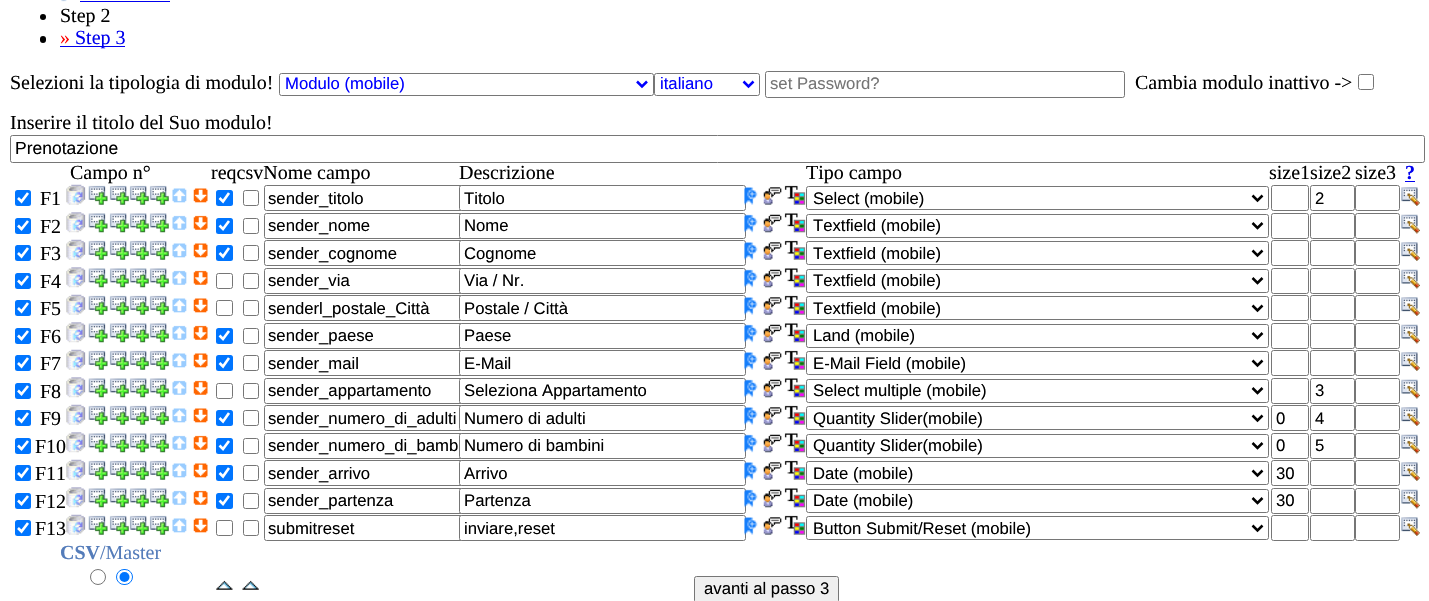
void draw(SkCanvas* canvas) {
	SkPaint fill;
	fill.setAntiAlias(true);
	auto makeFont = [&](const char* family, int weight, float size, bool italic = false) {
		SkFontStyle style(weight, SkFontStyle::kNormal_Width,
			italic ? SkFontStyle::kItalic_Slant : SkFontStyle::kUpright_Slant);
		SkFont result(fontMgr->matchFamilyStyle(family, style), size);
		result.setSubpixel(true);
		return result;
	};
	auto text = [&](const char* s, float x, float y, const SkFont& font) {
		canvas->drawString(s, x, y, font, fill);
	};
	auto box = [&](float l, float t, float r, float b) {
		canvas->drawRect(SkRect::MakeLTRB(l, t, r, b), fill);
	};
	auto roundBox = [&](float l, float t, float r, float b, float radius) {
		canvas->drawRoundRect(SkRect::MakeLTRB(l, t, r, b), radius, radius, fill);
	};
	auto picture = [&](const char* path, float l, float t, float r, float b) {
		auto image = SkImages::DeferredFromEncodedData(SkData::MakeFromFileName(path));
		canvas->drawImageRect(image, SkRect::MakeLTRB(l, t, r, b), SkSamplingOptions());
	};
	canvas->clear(0xFFFFFFFF);
	picture("image0.png", 61, 0, 67, 2);
	fill.setColor(0xFF0000EE);
	box(80, 1, 170, 2);
	fill.setColor(0xFF000000);
	canvas->drawCircle(43, 17, 3, fill);
	roundBox(40, 36, 46, 43, 3);
	fill.setColor(0xFF0000EE);
	box(60, 46, 125, 47);
	fill.setStyle(SkPaint::kStroke_Style);
	fill.setStrokeWidth(1);
	fill.setColor(0xFF767676);
	canvas->drawRoundRect(SkRect::MakeLTRB(279.5f, 73.5f, 653.5f, 95.5f), 2, 2, fill);
	fill.setStrokeWidth(2.5f);
	fill.setColor(0xFF0000FF);
	canvas->drawPath(SkPathBuilder().moveTo(637, 81.5f).lineTo(642, 86.5f).lineTo(647, 81.5f).detach(), fill);
	fill.setStrokeWidth(1);
	fill.setColor(0xFF767676);
	canvas->drawRoundRect(SkRect::MakeLTRB(654.5f, 73.5f, 759.5f, 95.5f), 2, 2, fill);
	fill.setStrokeWidth(2.5f);
	fill.setColor(0xFF0000FF);
	canvas->drawPath(SkPathBuilder().moveTo(743.5f, 81.5f).lineTo(748.5f, 86.5f).lineTo(753.5f, 81.5f).detach(), fill);
	fill.setStrokeWidth(1);
	fill.setColor(0xFF767676);
	canvas->drawRoundRect(SkRect::MakeLTRB(765.5f, 71.5f, 1124.5f, 97.5f), 2, 2, fill);
	canvas->drawRoundRect(SkRect::MakeLTRB(1358.5f, 74.5f, 1373.5f, 89.5f), 2, 2, fill);
	canvas->drawRoundRect(SkRect::MakeLTRB(10.5f, 135.5f, 1424.5f, 162.5f), 2, 2, fill);
	fill.setStyle(SkPaint::kFill_Style);
	fill.setColor(0xFF0000EE);
	box(1405, 181, 1415, 182);
	fill.setColor(0xFF0075FF);
	roundBox(15, 190, 31, 206, 2.5f);
	fill.setStyle(SkPaint::kStroke_Style);
	fill.setStrokeWidth(2.6f);
	fill.setColor(0xFFFFFFFF);
	canvas->drawPath(SkPathBuilder().moveTo(18, 198).lineTo(21.5f, 201.5f).lineTo(28, 193).detach(), fill);
	picture("image1.png", 66, 184, 86, 205);
	picture("image2.png", 88, 185, 108, 205);
	picture("image3.png", 109, 185, 129, 205);
	picture("image3.png", 129, 185, 149, 205);
	picture("image3.png", 149, 185, 169, 205);
	picture("image4.png", 172, 188, 187, 203);
	picture("image5.png", 193, 188, 208, 203);
	fill.setStyle(SkPaint::kFill_Style);
	fill.setColor(0xFF0075FF);
	roundBox(216, 190, 233, 206, 2.5f);
	fill.setStyle(SkPaint::kStroke_Style);
	fill.setColor(0xFFFFFFFF);
	canvas->drawPath(SkPathBuilder().moveTo(219.5f, 198).lineTo(223, 201.5f).lineTo(229, 193).detach(), fill);
	fill.setStrokeWidth(1);
	fill.setColor(0xFF767676);
	canvas->drawRoundRect(SkRect::MakeLTRB(243.5f, 190.5f, 258.5f, 205.5f), 2, 2, fill);
	canvas->drawRoundRect(SkRect::MakeLTRB(264.5f, 185.5f, 467.5f, 210.5f), 2, 2, fill);
	fill.setStyle(SkPaint::kFill_Style);
	fill.setColor(0xFFFFFFFF);
	canvas->drawRoundRect(SkRect::MakeLTRB(459.5f, 185.5f, 745.5f, 210.5f), 2, 2, fill);
	fill.setStyle(SkPaint::kStroke_Style);
	fill.setColor(0xFF767676);
	canvas->drawRoundRect(SkRect::MakeLTRB(459.5f, 185.5f, 745.5f, 210.5f), 2, 2, fill);
	picture("image6.png", 744, 187, 758, 205);
	picture("image7.png", 763, 187, 782, 205);
	picture("image8.png", 784, 185, 806, 205);
	canvas->drawRoundRect(SkRect::MakeLTRB(806.5f, 186.5f, 1268.5f, 209.5f), 2, 2, fill);
	fill.setStrokeWidth(2.5f);
	fill.setColor(0xFF000000);
	canvas->drawPath(SkPathBuilder().moveTo(1252.5f, 195.5f).lineTo(1257.5f, 200.5f).lineTo(1262.5f, 195.5f).detach(), fill);
	fill.setStrokeWidth(1);
	fill.setColor(0xFF767676);
	canvas->drawRoundRect(SkRect::MakeLTRB(1271.5f, 185.5f, 1308.5f, 210.5f), 2, 2, fill);
	canvas->drawRoundRect(SkRect::MakeLTRB(1310.5f, 185.5f, 1354.5f, 210.5f), 2, 2, fill);
	canvas->drawRoundRect(SkRect::MakeLTRB(1355.5f, 185.5f, 1399.5f, 210.5f), 2, 2, fill);
	picture("image9.png", 1401, 187, 1420, 206);
	fill.setStyle(SkPaint::kFill_Style);
	fill.setColor(0xFF0075FF);
	roundBox(15, 218, 31, 234, 2.5f);
	fill.setStyle(SkPaint::kStroke_Style);
	fill.setStrokeWidth(2.6f);
	fill.setColor(0xFFFFFFFF);
	canvas->drawPath(SkPathBuilder().moveTo(18, 225.5f).lineTo(21.5f, 229).lineTo(28, 221).detach(), fill);
	picture("image10.png", 66, 212, 86, 233);
	picture("image11.png", 88, 213, 108, 233);
	picture("image12.png", 109, 213, 129, 233);
	picture("image12.png", 129, 213, 149, 233);
	picture("image12.png", 149, 213, 169, 233);
	picture("image13.png", 172, 215, 187, 230);
	picture("image14.png", 193, 215, 208, 230);
	fill.setStyle(SkPaint::kFill_Style);
	fill.setColor(0xFF0075FF);
	roundBox(216, 218, 233, 234, 2.5f);
	fill.setStyle(SkPaint::kStroke_Style);
	fill.setColor(0xFFFFFFFF);
	canvas->drawPath(SkPathBuilder().moveTo(219.5f, 225.5f).lineTo(223, 229).lineTo(229, 221).detach(), fill);
	fill.setStrokeWidth(1);
	fill.setColor(0xFF767676);
	canvas->drawRoundRect(SkRect::MakeLTRB(243.5f, 218.5f, 258.5f, 233.5f), 2, 2, fill);
	canvas->drawRoundRect(SkRect::MakeLTRB(264.5f, 213.5f, 467.5f, 238.5f), 2, 2, fill);
	fill.setStyle(SkPaint::kFill_Style);
	fill.setColor(0xFFFFFFFF);
	canvas->drawRoundRect(SkRect::MakeLTRB(459.5f, 213.5f, 745.5f, 238.5f), 2, 2, fill);
	fill.setStyle(SkPaint::kStroke_Style);
	fill.setColor(0xFF767676);
	canvas->drawRoundRect(SkRect::MakeLTRB(459.5f, 213.5f, 745.5f, 238.5f), 2, 2, fill);
	picture("image15.png", 744, 214, 758, 233);
	picture("image16.png", 763, 214, 782, 233);
	picture("image17.png", 784, 213, 806, 233);
	canvas->drawRoundRect(SkRect::MakeLTRB(806.5f, 214.5f, 1268.5f, 237.5f), 2, 2, fill);
	fill.setStrokeWidth(2.5f);
	fill.setColor(0xFF000000);
	canvas->drawPath(SkPathBuilder().moveTo(1252.5f, 223).lineTo(1257.5f, 228).lineTo(1262.5f, 223).detach(), fill);
	fill.setStrokeWidth(1);
	fill.setColor(0xFF767676);
	canvas->drawRoundRect(SkRect::MakeLTRB(1271.5f, 213.5f, 1308.5f, 238.5f), 2, 2, fill);
	canvas->drawRoundRect(SkRect::MakeLTRB(1310.5f, 213.5f, 1354.5f, 238.5f), 2, 2, fill);
	canvas->drawRoundRect(SkRect::MakeLTRB(1355.5f, 213.5f, 1399.5f, 238.5f), 2, 2, fill);
	picture("image18.png", 1401, 214, 1420, 234);
	fill.setStyle(SkPaint::kFill_Style);
	fill.setColor(0xFF0075FF);
	roundBox(15, 245, 31, 261, 2.5f);
	fill.setStyle(SkPaint::kStroke_Style);
	fill.setStrokeWidth(2.6f);
	fill.setColor(0xFFFFFFFF);
	canvas->drawPath(SkPathBuilder().moveTo(18, 253).lineTo(21.5f, 256.5f).lineTo(28, 248).detach(), fill);
	picture("image19.png", 66, 239, 86, 260);
	picture("image20.png", 88, 240, 108, 260);
	picture("image21.png", 109, 240, 129, 260);
	picture("image21.png", 129, 240, 149, 260);
	picture("image21.png", 149, 240, 169, 260);
	picture("image22.png", 172, 243, 187, 258);
	picture("image23.png", 193, 243, 208, 258);
	fill.setStyle(SkPaint::kFill_Style);
	fill.setColor(0xFF0075FF);
	roundBox(216, 245, 233, 261, 2.5f);
	fill.setStyle(SkPaint::kStroke_Style);
	fill.setColor(0xFFFFFFFF);
	canvas->drawPath(SkPathBuilder().moveTo(219.5f, 253).lineTo(223, 256.5f).lineTo(229, 248).detach(), fill);
	fill.setStrokeWidth(1);
	fill.setColor(0xFF767676);
	canvas->drawRoundRect(SkRect::MakeLTRB(243.5f, 245.5f, 258.5f, 260.5f), 2, 2, fill);
	canvas->drawRoundRect(SkRect::MakeLTRB(264.5f, 240.5f, 467.5f, 265.5f), 2, 2, fill);
	fill.setStyle(SkPaint::kFill_Style);
	fill.setColor(0xFFFFFFFF);
	canvas->drawRoundRect(SkRect::MakeLTRB(459.5f, 240.5f, 745.5f, 265.5f), 2, 2, fill);
	fill.setStyle(SkPaint::kStroke_Style);
	fill.setColor(0xFF767676);
	canvas->drawRoundRect(SkRect::MakeLTRB(459.5f, 240.5f, 745.5f, 265.5f), 2, 2, fill);
	picture("image6.png", 744, 242, 758, 260);
	picture("image24.png", 763, 242, 782, 260);
	picture("image25.png", 784, 240, 806, 260);
	canvas->drawRoundRect(SkRect::MakeLTRB(806.5f, 241.5f, 1268.5f, 264.5f), 2, 2, fill);
	fill.setStrokeWidth(2.5f);
	fill.setColor(0xFF000000);
	canvas->drawPath(SkPathBuilder().moveTo(1252.5f, 250.5f).lineTo(1257.5f, 255.5f).lineTo(1262.5f, 250.5f).detach(), fill);
	fill.setStrokeWidth(1);
	fill.setColor(0xFF767676);
	canvas->drawRoundRect(SkRect::MakeLTRB(1271.5f, 240.5f, 1308.5f, 265.5f), 2, 2, fill);
	canvas->drawRoundRect(SkRect::MakeLTRB(1310.5f, 240.5f, 1354.5f, 265.5f), 2, 2, fill);
	canvas->drawRoundRect(SkRect::MakeLTRB(1355.5f, 240.5f, 1399.5f, 265.5f), 2, 2, fill);
	picture("image26.png", 1401, 242, 1420, 261);
	fill.setStyle(SkPaint::kFill_Style);
	fill.setColor(0xFF0075FF);
	roundBox(15, 273, 31, 289, 2.5f);
	fill.setStyle(SkPaint::kStroke_Style);
	fill.setStrokeWidth(2.6f);
	fill.setColor(0xFFFFFFFF);
	canvas->drawPath(SkPathBuilder().moveTo(18, 280.5f).lineTo(21.5f, 284).lineTo(28, 276).detach(), fill);
	picture("image10.png", 66, 267, 86, 288);
	picture("image11.png", 88, 268, 108, 288);
	picture("image12.png", 109, 268, 129, 288);
	picture("image12.png", 129, 268, 149, 288);
	picture("image12.png", 149, 268, 169, 288);
	picture("image13.png", 172, 270, 187, 285);
	picture("image14.png", 193, 270, 208, 285);
	fill.setStrokeWidth(1);
	fill.setColor(0xFF767676);
	canvas->drawRoundRect(SkRect::MakeLTRB(216.5f, 273.5f, 232.5f, 288.5f), 2, 2, fill);
	canvas->drawRoundRect(SkRect::MakeLTRB(243.5f, 273.5f, 258.5f, 288.5f), 2, 2, fill);
	canvas->drawRoundRect(SkRect::MakeLTRB(264.5f, 268.5f, 467.5f, 293.5f), 2, 2, fill);
	fill.setStyle(SkPaint::kFill_Style);
	fill.setColor(0xFFFFFFFF);
	canvas->drawRoundRect(SkRect::MakeLTRB(459.5f, 268.5f, 745.5f, 293.5f), 2, 2, fill);
	fill.setStyle(SkPaint::kStroke_Style);
	fill.setColor(0xFF767676);
	canvas->drawRoundRect(SkRect::MakeLTRB(459.5f, 268.5f, 745.5f, 293.5f), 2, 2, fill);
	picture("image15.png", 744, 269, 758, 288);
	picture("image16.png", 763, 269, 782, 288);
	picture("image17.png", 784, 268, 806, 288);
	canvas->drawRoundRect(SkRect::MakeLTRB(806.5f, 269.5f, 1268.5f, 292.5f), 2, 2, fill);
	fill.setStrokeWidth(2.5f);
	fill.setColor(0xFF000000);
	canvas->drawPath(SkPathBuilder().moveTo(1252.5f, 278).lineTo(1257.5f, 283).lineTo(1262.5f, 278).detach(), fill);
	fill.setStrokeWidth(1);
	fill.setColor(0xFF767676);
	canvas->drawRoundRect(SkRect::MakeLTRB(1271.5f, 268.5f, 1308.5f, 293.5f), 2, 2, fill);
	canvas->drawRoundRect(SkRect::MakeLTRB(1310.5f, 268.5f, 1354.5f, 293.5f), 2, 2, fill);
	canvas->drawRoundRect(SkRect::MakeLTRB(1355.5f, 268.5f, 1399.5f, 293.5f), 2, 2, fill);
	picture("image18.png", 1401, 269, 1420, 289);
	fill.setStyle(SkPaint::kFill_Style);
	fill.setColor(0xFF0075FF);
	roundBox(15, 300, 31, 316, 2.5f);
	fill.setStyle(SkPaint::kStroke_Style);
	fill.setStrokeWidth(2.6f);
	fill.setColor(0xFFFFFFFF);
	canvas->drawPath(SkPathBuilder().moveTo(18, 308).lineTo(21.5f, 311.5f).lineTo(28, 303).detach(), fill);
	picture("image1.png", 66, 294, 86, 315);
	picture("image2.png", 88, 295, 108, 315);
	picture("image3.png", 109, 295, 129, 315);
	picture("image3.png", 129, 295, 149, 315);
	picture("image3.png", 149, 295, 169, 315);
	picture("image4.png", 172, 298, 187, 313);
	picture("image5.png", 193, 298, 208, 313);
	fill.setStrokeWidth(1);
	fill.setColor(0xFF767676);
	canvas->drawRoundRect(SkRect::MakeLTRB(216.5f, 300.5f, 232.5f, 315.5f), 2, 2, fill);
	canvas->drawRoundRect(SkRect::MakeLTRB(243.5f, 300.5f, 258.5f, 315.5f), 2, 2, fill);
	canvas->drawRoundRect(SkRect::MakeLTRB(264.5f, 295.5f, 467.5f, 320.5f), 2, 2, fill);
	fill.setStyle(SkPaint::kFill_Style);
	fill.setColor(0xFFFFFFFF);
	canvas->drawRoundRect(SkRect::MakeLTRB(459.5f, 295.5f, 745.5f, 320.5f), 2, 2, fill);
	fill.setStyle(SkPaint::kStroke_Style);
	fill.setColor(0xFF767676);
	canvas->drawRoundRect(SkRect::MakeLTRB(459.5f, 295.5f, 745.5f, 320.5f), 2, 2, fill);
	picture("image6.png", 744, 297, 758, 315);
	picture("image7.png", 763, 297, 782, 315);
	picture("image8.png", 784, 295, 806, 315);
	canvas->drawRoundRect(SkRect::MakeLTRB(806.5f, 296.5f, 1268.5f, 319.5f), 2, 2, fill);
	fill.setStrokeWidth(2.5f);
	fill.setColor(0xFF000000);
	canvas->drawPath(SkPathBuilder().moveTo(1252.5f, 305.5f).lineTo(1257.5f, 310.5f).lineTo(1262.5f, 305.5f).detach(), fill);
	fill.setStrokeWidth(1);
	fill.setColor(0xFF767676);
	canvas->drawRoundRect(SkRect::MakeLTRB(1271.5f, 295.5f, 1308.5f, 320.5f), 2, 2, fill);
	canvas->drawRoundRect(SkRect::MakeLTRB(1310.5f, 295.5f, 1354.5f, 320.5f), 2, 2, fill);
	canvas->drawRoundRect(SkRect::MakeLTRB(1355.5f, 295.5f, 1399.5f, 320.5f), 2, 2, fill);
	picture("image9.png", 1401, 297, 1420, 316);
	fill.setStyle(SkPaint::kFill_Style);
	fill.setColor(0xFF0075FF);
	roundBox(15, 328, 31, 344, 2.5f);
	fill.setStyle(SkPaint::kStroke_Style);
	fill.setStrokeWidth(2.6f);
	fill.setColor(0xFFFFFFFF);
	canvas->drawPath(SkPathBuilder().moveTo(18, 335.5f).lineTo(21.5f, 339).lineTo(28, 331).detach(), fill);
	picture("image10.png", 66, 322, 86, 343);
	picture("image11.png", 88, 323, 108, 343);
	picture("image12.png", 109, 323, 129, 343);
	picture("image12.png", 129, 323, 149, 343);
	picture("image12.png", 149, 323, 169, 343);
	picture("image13.png", 172, 325, 187, 340);
	picture("image14.png", 193, 325, 208, 340);
	fill.setStyle(SkPaint::kFill_Style);
	fill.setColor(0xFF0075FF);
	roundBox(216, 328, 233, 344, 2.5f);
	fill.setStyle(SkPaint::kStroke_Style);
	fill.setColor(0xFFFFFFFF);
	canvas->drawPath(SkPathBuilder().moveTo(219.5f, 335.5f).lineTo(223, 339).lineTo(229, 331).detach(), fill);
	fill.setStrokeWidth(1);
	fill.setColor(0xFF767676);
	canvas->drawRoundRect(SkRect::MakeLTRB(243.5f, 328.5f, 258.5f, 343.5f), 2, 2, fill);
	canvas->drawRoundRect(SkRect::MakeLTRB(264.5f, 323.5f, 467.5f, 348.5f), 2, 2, fill);
	fill.setStyle(SkPaint::kFill_Style);
	fill.setColor(0xFFFFFFFF);
	canvas->drawRoundRect(SkRect::MakeLTRB(459.5f, 323.5f, 745.5f, 348.5f), 2, 2, fill);
	fill.setStyle(SkPaint::kStroke_Style);
	fill.setColor(0xFF767676);
	canvas->drawRoundRect(SkRect::MakeLTRB(459.5f, 323.5f, 745.5f, 348.5f), 2, 2, fill);
	picture("image15.png", 744, 324, 758, 343);
	picture("image16.png", 763, 324, 782, 343);
	picture("image17.png", 784, 323, 806, 343);
	canvas->drawRoundRect(SkRect::MakeLTRB(806.5f, 324.5f, 1268.5f, 347.5f), 2, 2, fill);
	fill.setStrokeWidth(2.5f);
	fill.setColor(0xFF000000);
	canvas->drawPath(SkPathBuilder().moveTo(1252.5f, 333).lineTo(1257.5f, 338).lineTo(1262.5f, 333).detach(), fill);
	fill.setStrokeWidth(1);
	fill.setColor(0xFF767676);
	canvas->drawRoundRect(SkRect::MakeLTRB(1271.5f, 323.5f, 1308.5f, 348.5f), 2, 2, fill);
	canvas->drawRoundRect(SkRect::MakeLTRB(1310.5f, 323.5f, 1354.5f, 348.5f), 2, 2, fill);
	canvas->drawRoundRect(SkRect::MakeLTRB(1355.5f, 323.5f, 1399.5f, 348.5f), 2, 2, fill);
	picture("image18.png", 1401, 324, 1420, 344);
	fill.setStyle(SkPaint::kFill_Style);
	fill.setColor(0xFF0075FF);
	roundBox(15, 355, 31, 371, 2.5f);
	fill.setStyle(SkPaint::kStroke_Style);
	fill.setStrokeWidth(2.6f);
	fill.setColor(0xFFFFFFFF);
	canvas->drawPath(SkPathBuilder().moveTo(18, 363).lineTo(21.5f, 366.5f).lineTo(28, 358).detach(), fill);
	picture("image1.png", 66, 349, 86, 370);
	picture("image2.png", 88, 350, 108, 370);
	picture("image3.png", 109, 350, 129, 370);
	picture("image3.png", 129, 350, 149, 370);
	picture("image3.png", 149, 350, 169, 370);
	picture("image4.png", 172, 353, 187, 368);
	picture("image5.png", 193, 353, 208, 368);
	fill.setStyle(SkPaint::kFill_Style);
	fill.setColor(0xFF0075FF);
	roundBox(216, 355, 233, 371, 2.5f);
	fill.setStyle(SkPaint::kStroke_Style);
	fill.setColor(0xFFFFFFFF);
	canvas->drawPath(SkPathBuilder().moveTo(219.5f, 363).lineTo(223, 366.5f).lineTo(229, 358).detach(), fill);
	fill.setStrokeWidth(1);
	fill.setColor(0xFF767676);
	canvas->drawRoundRect(SkRect::MakeLTRB(243.5f, 355.5f, 258.5f, 370.5f), 2, 2, fill);
	canvas->drawRoundRect(SkRect::MakeLTRB(264.5f, 350.5f, 467.5f, 375.5f), 2, 2, fill);
	fill.setStyle(SkPaint::kFill_Style);
	fill.setColor(0xFFFFFFFF);
	canvas->drawRoundRect(SkRect::MakeLTRB(459.5f, 350.5f, 745.5f, 375.5f), 2, 2, fill);
	fill.setStyle(SkPaint::kStroke_Style);
	fill.setColor(0xFF767676);
	canvas->drawRoundRect(SkRect::MakeLTRB(459.5f, 350.5f, 745.5f, 375.5f), 2, 2, fill);
	picture("image6.png", 744, 352, 758, 370);
	picture("image7.png", 763, 352, 782, 370);
	picture("image8.png", 784, 350, 806, 370);
	canvas->drawRoundRect(SkRect::MakeLTRB(806.5f, 351.5f, 1268.5f, 374.5f), 2, 2, fill);
	fill.setStrokeWidth(2.5f);
	fill.setColor(0xFF000000);
	canvas->drawPath(SkPathBuilder().moveTo(1252.5f, 360.5f).lineTo(1257.5f, 365.5f).lineTo(1262.5f, 360.5f).detach(), fill);
	fill.setStrokeWidth(1);
	fill.setColor(0xFF767676);
	canvas->drawRoundRect(SkRect::MakeLTRB(1271.5f, 350.5f, 1308.5f, 375.5f), 2, 2, fill);
	canvas->drawRoundRect(SkRect::MakeLTRB(1310.5f, 350.5f, 1354.5f, 375.5f), 2, 2, fill);
	canvas->drawRoundRect(SkRect::MakeLTRB(1355.5f, 350.5f, 1399.5f, 375.5f), 2, 2, fill);
	picture("image9.png", 1401, 352, 1420, 371);
	fill.setStyle(SkPaint::kFill_Style);
	fill.setColor(0xFF0075FF);
	roundBox(15, 383, 31, 399, 2.5f);
	fill.setStyle(SkPaint::kStroke_Style);
	fill.setStrokeWidth(2.6f);
	fill.setColor(0xFFFFFFFF);
	canvas->drawPath(SkPathBuilder().moveTo(18, 390.5f).lineTo(21.5f, 394).lineTo(28, 386).detach(), fill);
	picture("image10.png", 66, 377, 86, 398);
	picture("image11.png", 88, 378, 108, 398);
	picture("image12.png", 109, 378, 129, 398);
	picture("image12.png", 129, 378, 149, 398);
	picture("image12.png", 149, 378, 169, 398);
	picture("image13.png", 172, 380, 187, 395);
	picture("image14.png", 193, 380, 208, 395);
	fill.setStrokeWidth(1);
	fill.setColor(0xFF767676);
	canvas->drawRoundRect(SkRect::MakeLTRB(216.5f, 383.5f, 232.5f, 398.5f), 2, 2, fill);
	canvas->drawRoundRect(SkRect::MakeLTRB(243.5f, 383.5f, 258.5f, 398.5f), 2, 2, fill);
	canvas->drawRoundRect(SkRect::MakeLTRB(264.5f, 378.5f, 467.5f, 403.5f), 2, 2, fill);
	fill.setStyle(SkPaint::kFill_Style);
	fill.setColor(0xFFFFFFFF);
	canvas->drawRoundRect(SkRect::MakeLTRB(459.5f, 378.5f, 745.5f, 403.5f), 2, 2, fill);
	fill.setStyle(SkPaint::kStroke_Style);
	fill.setColor(0xFF767676);
	canvas->drawRoundRect(SkRect::MakeLTRB(459.5f, 378.5f, 745.5f, 403.5f), 2, 2, fill);
	picture("image15.png", 744, 379, 758, 398);
	picture("image16.png", 763, 379, 782, 398);
	picture("image17.png", 784, 378, 806, 398);
	canvas->drawRoundRect(SkRect::MakeLTRB(806.5f, 379.5f, 1268.5f, 402.5f), 2, 2, fill);
	fill.setStrokeWidth(2.5f);
	fill.setColor(0xFF000000);
	canvas->drawPath(SkPathBuilder().moveTo(1252.5f, 388).lineTo(1257.5f, 393).lineTo(1262.5f, 388).detach(), fill);
	fill.setStrokeWidth(1);
	fill.setColor(0xFF767676);
	canvas->drawRoundRect(SkRect::MakeLTRB(1271.5f, 378.5f, 1308.5f, 403.5f), 2, 2, fill);
	canvas->drawRoundRect(SkRect::MakeLTRB(1310.5f, 378.5f, 1354.5f, 403.5f), 2, 2, fill);
	canvas->drawRoundRect(SkRect::MakeLTRB(1355.5f, 378.5f, 1399.5f, 403.5f), 2, 2, fill);
	picture("image18.png", 1401, 379, 1420, 399);
	fill.setStyle(SkPaint::kFill_Style);
	fill.setColor(0xFF0075FF);
	roundBox(15, 410, 31, 426, 2.5f);
	fill.setStyle(SkPaint::kStroke_Style);
	fill.setStrokeWidth(2.6f);
	fill.setColor(0xFFFFFFFF);
	canvas->drawPath(SkPathBuilder().moveTo(18, 418).lineTo(21.5f, 421.5f).lineTo(28, 413).detach(), fill);
	picture("image1.png", 66, 404, 86, 425);
	picture("image2.png", 88, 405, 108, 425);
	picture("image3.png", 109, 405, 129, 425);
	picture("image3.png", 129, 405, 149, 425);
	picture("image3.png", 149, 405, 169, 425);
	picture("image4.png", 172, 408, 187, 423);
	picture("image5.png", 193, 408, 208, 423);
	fill.setStyle(SkPaint::kFill_Style);
	fill.setColor(0xFF0075FF);
	roundBox(216, 410, 233, 426, 2.5f);
	fill.setStyle(SkPaint::kStroke_Style);
	fill.setColor(0xFFFFFFFF);
	canvas->drawPath(SkPathBuilder().moveTo(219.5f, 418).lineTo(223, 421.5f).lineTo(229, 413).detach(), fill);
	fill.setStrokeWidth(1);
	fill.setColor(0xFF767676);
	canvas->drawRoundRect(SkRect::MakeLTRB(243.5f, 410.5f, 258.5f, 425.5f), 2, 2, fill);
	canvas->drawRoundRect(SkRect::MakeLTRB(264.5f, 405.5f, 467.5f, 430.5f), 2, 2, fill);
	fill.setStyle(SkPaint::kFill_Style);
	fill.setColor(0xFFFFFFFF);
	canvas->drawRoundRect(SkRect::MakeLTRB(459.5f, 405.5f, 745.5f, 430.5f), 2, 2, fill);
	fill.setStyle(SkPaint::kStroke_Style);
	fill.setColor(0xFF767676);
	canvas->drawRoundRect(SkRect::MakeLTRB(459.5f, 405.5f, 745.5f, 430.5f), 2, 2, fill);
	picture("image6.png", 744, 407, 758, 425);
	picture("image7.png", 763, 407, 782, 425);
	picture("image8.png", 784, 405, 806, 425);
	canvas->drawRoundRect(SkRect::MakeLTRB(806.5f, 406.5f, 1268.5f, 429.5f), 2, 2, fill);
	fill.setStrokeWidth(2.5f);
	fill.setColor(0xFF000000);
	canvas->drawPath(SkPathBuilder().moveTo(1252.5f, 415.5f).lineTo(1257.5f, 420.5f).lineTo(1262.5f, 415.5f).detach(), fill);
	fill.setStrokeWidth(1);
	fill.setColor(0xFF767676);
	canvas->drawRoundRect(SkRect::MakeLTRB(1271.5f, 405.5f, 1308.5f, 430.5f), 2, 2, fill);
	canvas->drawRoundRect(SkRect::MakeLTRB(1310.5f, 405.5f, 1354.5f, 430.5f), 2, 2, fill);
	canvas->drawRoundRect(SkRect::MakeLTRB(1355.5f, 405.5f, 1399.5f, 430.5f), 2, 2, fill);
	picture("image9.png", 1401, 407, 1420, 426);
	fill.setStyle(SkPaint::kFill_Style);
	fill.setColor(0xFF0075FF);
	roundBox(15, 438, 31, 454, 2.5f);
	fill.setStyle(SkPaint::kStroke_Style);
	fill.setStrokeWidth(2.6f);
	fill.setColor(0xFFFFFFFF);
	canvas->drawPath(SkPathBuilder().moveTo(18, 445.5f).lineTo(21.5f, 449).lineTo(28, 441).detach(), fill);
	picture("image27.png", 66, 432, 86, 453);
	picture("image28.png", 88, 433, 108, 453);
	picture("image29.png", 109, 433, 129, 453);
	picture("image29.png", 129, 433, 149, 453);
	picture("image29.png", 149, 433, 169, 453);
	picture("image30.png", 172, 435, 187, 450);
	picture("image31.png", 193, 435, 208, 450);
	fill.setStyle(SkPaint::kFill_Style);
	fill.setColor(0xFF0075FF);
	roundBox(216, 438, 233, 454, 2.5f);
	fill.setStyle(SkPaint::kStroke_Style);
	fill.setColor(0xFFFFFFFF);
	canvas->drawPath(SkPathBuilder().moveTo(219.5f, 445.5f).lineTo(223, 449).lineTo(229, 441).detach(), fill);
	fill.setStrokeWidth(1);
	fill.setColor(0xFF767676);
	canvas->drawRoundRect(SkRect::MakeLTRB(243.5f, 438.5f, 258.5f, 453.5f), 2, 2, fill);
	canvas->drawRoundRect(SkRect::MakeLTRB(264.5f, 433.5f, 467.5f, 458.5f), 2, 2, fill);
	fill.setStyle(SkPaint::kFill_Style);
	fill.setColor(0xFFFFFFFF);
	canvas->drawRoundRect(SkRect::MakeLTRB(459.5f, 433.5f, 745.5f, 458.5f), 2, 2, fill);
	fill.setStyle(SkPaint::kStroke_Style);
	fill.setColor(0xFF767676);
	canvas->drawRoundRect(SkRect::MakeLTRB(459.5f, 433.5f, 745.5f, 458.5f), 2, 2, fill);
	picture("image15.png", 744, 434, 758, 453);
	picture("image32.png", 763, 434, 782, 453);
	picture("image33.png", 784, 433, 806, 453);
	canvas->drawRoundRect(SkRect::MakeLTRB(806.5f, 434.5f, 1268.5f, 457.5f), 2, 2, fill);
	fill.setStrokeWidth(2.5f);
	fill.setColor(0xFF000000);
	canvas->drawPath(SkPathBuilder().moveTo(1252.5f, 443).lineTo(1257.5f, 448).lineTo(1262.5f, 443).detach(), fill);
	fill.setStrokeWidth(1);
	fill.setColor(0xFF767676);
	canvas->drawRoundRect(SkRect::MakeLTRB(1271.5f, 433.5f, 1308.5f, 458.5f), 2, 2, fill);
	canvas->drawRoundRect(SkRect::MakeLTRB(1310.5f, 433.5f, 1354.5f, 458.5f), 2, 2, fill);
	canvas->drawRoundRect(SkRect::MakeLTRB(1355.5f, 433.5f, 1399.5f, 458.5f), 2, 2, fill);
	picture("image34.png", 1401, 434, 1420, 454);
	fill.setStyle(SkPaint::kFill_Style);
	fill.setColor(0xFF0075FF);
	roundBox(15, 465, 31, 481, 2.5f);
	fill.setStyle(SkPaint::kStroke_Style);
	fill.setStrokeWidth(2.6f);
	fill.setColor(0xFFFFFFFF);
	canvas->drawPath(SkPathBuilder().moveTo(18, 473).lineTo(21.5f, 476.5f).lineTo(28, 468).detach(), fill);
	picture("image1.png", 66, 459, 86, 480);
	picture("image2.png", 88, 460, 108, 480);
	picture("image3.png", 109, 460, 129, 480);
	picture("image3.png", 129, 460, 149, 480);
	picture("image3.png", 149, 460, 169, 480);
	picture("image4.png", 172, 463, 187, 478);
	picture("image5.png", 193, 463, 208, 478);
	fill.setStyle(SkPaint::kFill_Style);
	fill.setColor(0xFF0075FF);
	roundBox(216, 465, 233, 481, 2.5f);
	fill.setStyle(SkPaint::kStroke_Style);
	fill.setColor(0xFFFFFFFF);
	canvas->drawPath(SkPathBuilder().moveTo(219.5f, 473).lineTo(223, 476.5f).lineTo(229, 468).detach(), fill);
	fill.setStrokeWidth(1);
	fill.setColor(0xFF767676);
	canvas->drawRoundRect(SkRect::MakeLTRB(243.5f, 465.5f, 258.5f, 480.5f), 2, 2, fill);
	canvas->drawRoundRect(SkRect::MakeLTRB(264.5f, 460.5f, 467.5f, 485.5f), 2, 2, fill);
	fill.setStyle(SkPaint::kFill_Style);
	fill.setColor(0xFFFFFFFF);
	canvas->drawRoundRect(SkRect::MakeLTRB(459.5f, 460.5f, 745.5f, 485.5f), 2, 2, fill);
	fill.setStyle(SkPaint::kStroke_Style);
	fill.setColor(0xFF767676);
	canvas->drawRoundRect(SkRect::MakeLTRB(459.5f, 460.5f, 745.5f, 485.5f), 2, 2, fill);
	picture("image6.png", 744, 462, 758, 480);
	picture("image7.png", 763, 462, 782, 480);
	picture("image8.png", 784, 460, 806, 480);
	canvas->drawRoundRect(SkRect::MakeLTRB(806.5f, 461.5f, 1268.5f, 484.5f), 2, 2, fill);
	fill.setStrokeWidth(2.5f);
	fill.setColor(0xFF000000);
	canvas->drawPath(SkPathBuilder().moveTo(1252.5f, 470.5f).lineTo(1257.5f, 475.5f).lineTo(1262.5f, 470.5f).detach(), fill);
	fill.setStrokeWidth(1);
	fill.setColor(0xFF767676);
	canvas->drawRoundRect(SkRect::MakeLTRB(1271.5f, 460.5f, 1308.5f, 485.5f), 2, 2, fill);
	canvas->drawRoundRect(SkRect::MakeLTRB(1310.5f, 460.5f, 1354.5f, 485.5f), 2, 2, fill);
	canvas->drawRoundRect(SkRect::MakeLTRB(1355.5f, 460.5f, 1399.5f, 485.5f), 2, 2, fill);
	picture("image9.png", 1401, 462, 1420, 481);
	fill.setStyle(SkPaint::kFill_Style);
	fill.setColor(0xFF0075FF);
	roundBox(15, 493, 31, 509, 2.5f);
	fill.setStyle(SkPaint::kStroke_Style);
	fill.setStrokeWidth(2.6f);
	fill.setColor(0xFFFFFFFF);
	canvas->drawPath(SkPathBuilder().moveTo(18, 500.5f).lineTo(21.5f, 504).lineTo(28, 496).detach(), fill);
	picture("image10.png", 66, 487, 86, 508);
	picture("image11.png", 88, 488, 108, 508);
	picture("image12.png", 109, 488, 129, 508);
	picture("image12.png", 129, 488, 149, 508);
	picture("image12.png", 149, 488, 169, 508);
	picture("image13.png", 172, 490, 187, 505);
	picture("image14.png", 193, 490, 208, 505);
	fill.setStyle(SkPaint::kFill_Style);
	fill.setColor(0xFF0075FF);
	roundBox(216, 493, 233, 509, 2.5f);
	fill.setStyle(SkPaint::kStroke_Style);
	fill.setColor(0xFFFFFFFF);
	canvas->drawPath(SkPathBuilder().moveTo(219.5f, 500.5f).lineTo(223, 504).lineTo(229, 496).detach(), fill);
	fill.setStrokeWidth(1);
	fill.setColor(0xFF767676);
	canvas->drawRoundRect(SkRect::MakeLTRB(243.5f, 493.5f, 258.5f, 508.5f), 2, 2, fill);
	canvas->drawRoundRect(SkRect::MakeLTRB(264.5f, 488.5f, 467.5f, 513.5f), 2, 2, fill);
	fill.setStyle(SkPaint::kFill_Style);
	fill.setColor(0xFFFFFFFF);
	canvas->drawRoundRect(SkRect::MakeLTRB(459.5f, 488.5f, 745.5f, 513.5f), 2, 2, fill);
	fill.setStyle(SkPaint::kStroke_Style);
	fill.setColor(0xFF767676);
	canvas->drawRoundRect(SkRect::MakeLTRB(459.5f, 488.5f, 745.5f, 513.5f), 2, 2, fill);
	picture("image15.png", 744, 489, 758, 508);
	picture("image16.png", 763, 489, 782, 508);
	picture("image17.png", 784, 488, 806, 508);
	canvas->drawRoundRect(SkRect::MakeLTRB(806.5f, 489.5f, 1268.5f, 512.5f), 2, 2, fill);
	fill.setStrokeWidth(2.5f);
	fill.setColor(0xFF000000);
	canvas->drawPath(SkPathBuilder().moveTo(1252.5f, 498).lineTo(1257.5f, 503).lineTo(1262.5f, 498).detach(), fill);
	fill.setStrokeWidth(1);
	fill.setColor(0xFF767676);
	canvas->drawRoundRect(SkRect::MakeLTRB(1271.5f, 488.5f, 1308.5f, 513.5f), 2, 2, fill);
	canvas->drawRoundRect(SkRect::MakeLTRB(1310.5f, 488.5f, 1354.5f, 513.5f), 2, 2, fill);
	canvas->drawRoundRect(SkRect::MakeLTRB(1355.5f, 488.5f, 1399.5f, 513.5f), 2, 2, fill);
	picture("image18.png", 1401, 489, 1420, 509);
	fill.setStyle(SkPaint::kFill_Style);
	fill.setColor(0xFF0075FF);
	roundBox(15, 520, 31, 536, 2.5f);
	fill.setStyle(SkPaint::kStroke_Style);
	fill.setStrokeWidth(2.6f);
	fill.setColor(0xFFFFFFFF);
	canvas->drawPath(SkPathBuilder().moveTo(18, 528).lineTo(21.5f, 531.5f).lineTo(28, 523).detach(), fill);
	picture("image1.png", 66, 514, 86, 535);
	picture("image2.png", 88, 515, 108, 535);
	picture("image3.png", 109, 515, 129, 535);
	picture("image3.png", 129, 515, 149, 535);
	picture("image3.png", 149, 515, 169, 535);
	picture("image4.png", 172, 518, 187, 533);
	picture("image5.png", 193, 518, 208, 533);
	fill.setStrokeWidth(1);
	fill.setColor(0xFF767676);
	canvas->drawRoundRect(SkRect::MakeLTRB(216.5f, 520.5f, 232.5f, 535.5f), 2, 2, fill);
	canvas->drawRoundRect(SkRect::MakeLTRB(243.5f, 520.5f, 258.5f, 535.5f), 2, 2, fill);
	canvas->drawRoundRect(SkRect::MakeLTRB(264.5f, 515.5f, 467.5f, 540.5f), 2, 2, fill);
	fill.setStyle(SkPaint::kFill_Style);
	fill.setColor(0xFFFFFFFF);
	canvas->drawRoundRect(SkRect::MakeLTRB(459.5f, 515.5f, 745.5f, 540.5f), 2, 2, fill);
	fill.setStyle(SkPaint::kStroke_Style);
	fill.setColor(0xFF767676);
	canvas->drawRoundRect(SkRect::MakeLTRB(459.5f, 515.5f, 745.5f, 540.5f), 2, 2, fill);
	picture("image6.png", 744, 517, 758, 535);
	picture("image7.png", 763, 517, 782, 535);
	picture("image8.png", 784, 515, 806, 535);
	canvas->drawRoundRect(SkRect::MakeLTRB(806.5f, 516.5f, 1268.5f, 539.5f), 2, 2, fill);
	fill.setStrokeWidth(2.5f);
	fill.setColor(0xFF000000);
	canvas->drawPath(SkPathBuilder().moveTo(1252.5f, 525.5f).lineTo(1257.5f, 530.5f).lineTo(1262.5f, 525.5f).detach(), fill);
	fill.setStrokeWidth(1);
	fill.setColor(0xFF767676);
	canvas->drawRoundRect(SkRect::MakeLTRB(1271.5f, 515.5f, 1308.5f, 540.5f), 2, 2, fill);
	canvas->drawRoundRect(SkRect::MakeLTRB(1310.5f, 515.5f, 1354.5f, 540.5f), 2, 2, fill);
	canvas->drawRoundRect(SkRect::MakeLTRB(1355.5f, 515.5f, 1399.5f, 540.5f), 2, 2, fill);
	picture("image9.png", 1401, 517, 1420, 536);
	canvas->drawCircle(98, 577, 7.5f, fill);
	fill.setColor(0xFF0075FF);
	canvas->drawRoundRect(SkRect::MakeLTRB(116.5f, 569.5f, 132.5f, 584.5f), 7.5f, 7.5f, fill);
	fill.setStyle(SkPaint::kFill_Style);
	canvas->drawCircle(124.5f, 577, 5, fill);
	picture("image35.png", 216, 580, 233, 590);
	picture("image36.png", 242, 580, 259, 590);
	fill.setColor(0xFFEFEFEF);
	canvas->drawRoundRect(SkRect::MakeLTRB(694.5f, 576.5f, 838.5f, 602.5f), 2, 2, fill);
	fill.setStyle(SkPaint::kStroke_Style);
	fill.setColor(0xFF767676);
	canvas->drawRoundRect(SkRect::MakeLTRB(694.5f, 576.5f, 838.5f, 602.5f), 2, 2, fill);
	auto font1 = makeFont("Liberation Serif", 400, 20);
	fill.setStyle(SkPaint::kFill_Style);
	fill.setColor(0xFF000000);
	text("Step 2", 60, 22, font1);
	fill.setColor(0xFFFF0000);
	text("»", 60, 44, font1);
	fill.setColor(0xFF0000EE);
	text("Step 3", 75, 44, font1);
	fill.setColor(0xFF000000);
	text("Selezioni la tipologia di modulo!", 10, 89, font1);
	auto font2 = makeFont("Liberation Sans", 400, 16.7f);
	fill.setColor(0xFF0000FF);
	text("Modulo (mobile)", 285, 89, font2);
	text("italiano", 660, 89, font2);
	fill.setColor(0xFF757575);
	text("set Password?", 770, 89, font2);
	fill.setColor(0xFF000000);
	text("Cambia modulo inattivo ->", 1135, 89, font1);
	text("Inserire il titolo del Suo modulo!", 10, 129, font1);
	auto font3 = makeFont("Liberation Sans", 400, 17.5f);
	text("Prenotazione", 15, 154, font3);
	text("Campo n°", 70, 179, font1);
	text("reqcsvNome campo", 211, 179, font1);
	text("Descrizione", 459, 179, font1);
	text("Tipo campo", 806, 179, font1);
	text("size1size2", 1269, 179, font1);
	text("size3", 1355, 179, font1);
	auto font4 = makeFont("Liberation Serif", 700, 20);
	fill.setColor(0xFF0000EE);
	text("?", 1405, 179, font4);
	fill.setColor(0xFF000000);
	text("F1", 40, 205, font1);
	text("sender_titolo", 268, 204, font2);
	text("Titolo", 464, 204, font2);
	text("Select (mobile)", 813, 204, font2);
	text("2", 1315, 204, font2);
	text("F2", 40, 233, font1);
	text("sender_nome", 268, 231, font2);
	text("Nome", 464, 231, font2);
	text("Textfield (mobile)", 813, 231, font2);
	text("F3", 40, 260, font1);
	text("sender_cognome", 268, 259, font2);
	text("Cognome", 464, 259, font2);
	text("Textfield (mobile)", 813, 259, font2);
	text("F4", 40, 288, font1);
	text("sender_via", 268, 286, font2);
	text("Via / Nr.", 464, 286, font2);
	text("Textfield (mobile)", 813, 286, font2);
	text("F5", 40, 315, font1);
	text("senderl_postale_Città", 268, 314, font2);
	text("Postale / Città", 464, 314, font2);
	text("Textfield (mobile)", 813, 314, font2);
	text("F6", 40, 343, font1);
	text("sender_paese", 268, 341, font2);
	text("Paese", 464, 341, font2);
	text("Land (mobile)", 813, 341, font2);
	text("F7", 40, 370, font1);
	text("sender_mail", 268, 369, font2);
	text("E-Mail", 464, 369, font2);
	text("E-Mail Field (mobile)", 813, 369, font2);
	text("F8", 40, 398, font1);
	text("sender_appartamento", 268, 396, font2);
	text("Seleziona Appartamento", 464, 396, font2);
	text("Select multiple (mobile)", 813, 396, font2);
	text("3", 1315, 396, font2);
	text("F9", 40, 425, font1);
	text("sender_numero_di_adulti", 268, 424, font2);
	text("Numero di adulti", 464, 424, font2);
	text("Quantity Slider(mobile)", 813, 424, font2);
	text("0", 1276, 424, font2);
	text("4", 1315, 424, font2);
	text("F10", 35, 453, font1);
	text("sender_numero_di_bamb", 268, 451, font2);
	text("Numero di bambini", 464, 451, font2);
	text("Quantity Slider(mobile)", 813, 451, font2);
	text("0", 1276, 451, font2);
	text("5", 1315, 451, font2);
	text("F11", 35, 480, font1);
	text("sender_arrivo", 268, 479, font2);
	text("Arrivo", 464, 479, font2);
	text("Date (mobile)", 813, 479, font2);
	text("30", 1276, 479, font2);
	text("F12", 35, 508, font1);
	text("sender_partenza", 268, 506, font2);
	text("Partenza", 464, 506, font2);
	text("Date (mobile)", 813, 506, font2);
	text("30", 1276, 506, font2);
	text("F13", 35, 535, font1);
	text("submitreset", 268, 534, font2);
	text("inviare,reset", 464, 534, font2);
	text("Button Submit/Reset (mobile)", 813, 534, font2);
	fill.setColor(0xFF547CBA);
	text("CSV", 60, 559, font4);
	text("/Master", 100, 559, font1);
	fill.setColor(0xFF000000);
	text("avanti al passo 3", 704, 594, font2);
}
